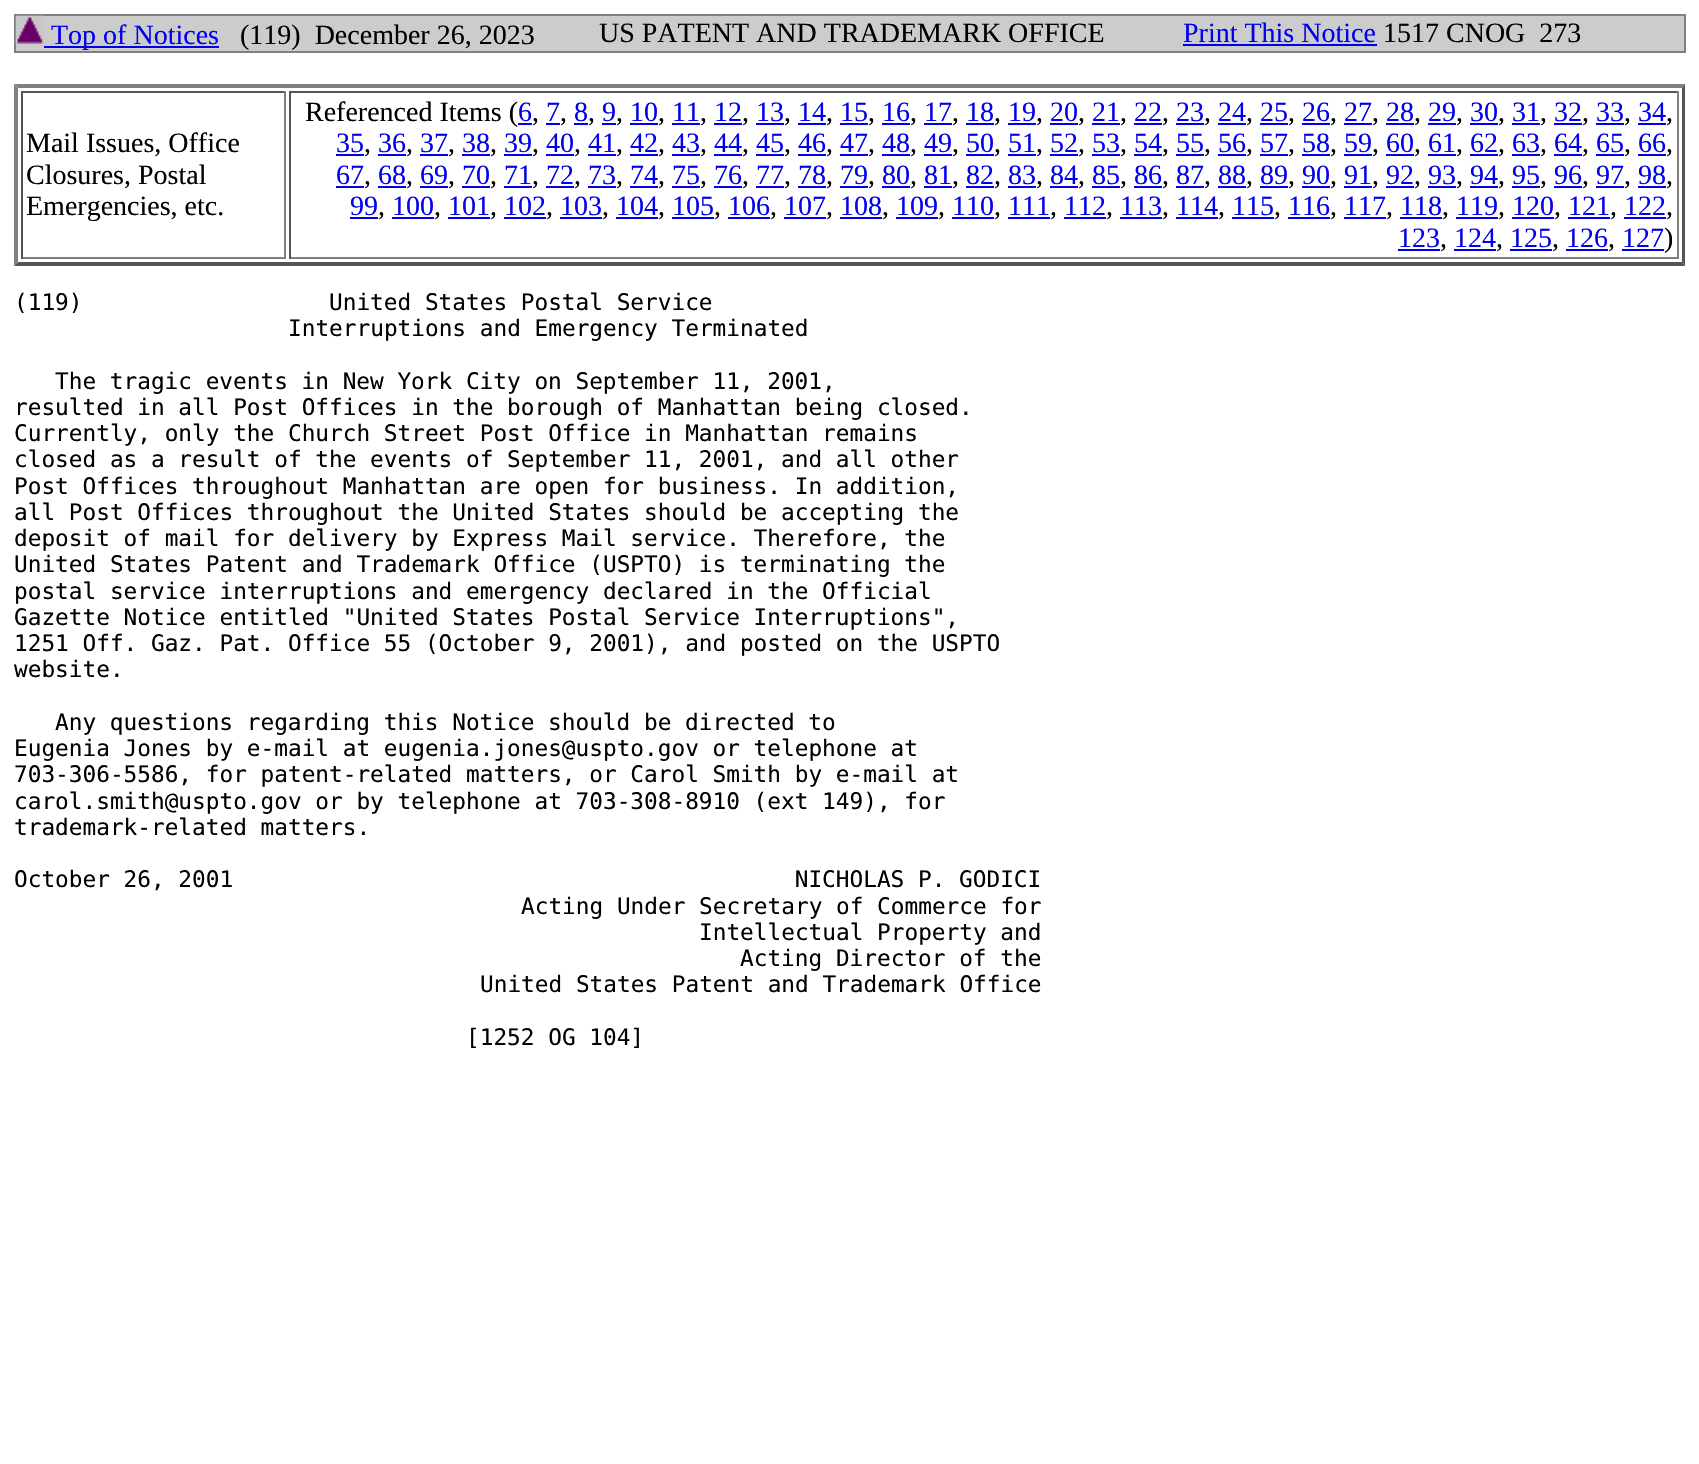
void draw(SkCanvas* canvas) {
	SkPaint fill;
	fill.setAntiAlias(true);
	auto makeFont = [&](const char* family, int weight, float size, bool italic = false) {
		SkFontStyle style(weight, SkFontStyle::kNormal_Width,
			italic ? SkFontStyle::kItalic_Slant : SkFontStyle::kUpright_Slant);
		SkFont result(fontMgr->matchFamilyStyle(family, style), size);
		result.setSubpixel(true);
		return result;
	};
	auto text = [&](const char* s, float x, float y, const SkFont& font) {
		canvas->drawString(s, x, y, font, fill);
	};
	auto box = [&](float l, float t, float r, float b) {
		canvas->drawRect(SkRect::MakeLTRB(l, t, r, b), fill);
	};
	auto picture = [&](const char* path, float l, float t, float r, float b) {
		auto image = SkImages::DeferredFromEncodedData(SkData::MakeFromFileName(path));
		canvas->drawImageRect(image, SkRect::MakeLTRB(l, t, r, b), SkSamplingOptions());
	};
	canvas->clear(0xFFFFFFFF);
	fill.setColor(0xFFCCCCCC);
	box(16, 16, 1684, 51);
	fill.setColor(0xFF808080);
	box(14, 14, 1685, 16);
	box(1684, 14, 1686, 53);
	box(14, 51, 1685, 53);
	box(14, 14, 16, 53);
	picture("image0.png", 15, 15, 44, 44);
	fill.setColor(0xFF0000EE);
	box(44, 46, 219, 48);
	box(1183, 44, 1377, 46);
	fill.setColor(0xFF808080);
	canvas->drawPath(SkPathBuilder().moveTo(14, 84).lineTo(1685, 84).lineTo(1682, 88).lineTo(18, 88).close().detach(), fill);
	fill.setColor(0xFF555555);
	canvas->drawPath(SkPathBuilder().moveTo(1685, 84).lineTo(1685, 266).lineTo(1682, 262).lineTo(1682, 88).close().detach(), fill);
	canvas->drawPath(SkPathBuilder().moveTo(1685, 266).lineTo(14, 266).lineTo(18, 262).lineTo(1682, 262).close().detach(), fill);
	fill.setColor(0xFF808080);
	canvas->drawPath(SkPathBuilder().moveTo(14, 266).lineTo(14, 84).lineTo(18, 88).lineTo(18, 262).close().detach(), fill);
	fill.setColor(0xFF555555);
	box(21, 91, 285, 93);
	fill.setColor(0xFF808080);
	box(284, 91, 286, 259);
	box(21, 257, 285, 259);
	fill.setColor(0xFF555555);
	box(21, 91, 23, 259);
	box(289, 91, 1678, 93);
	fill.setColor(0xFF808080);
	box(1677, 91, 1679, 259);
	box(289, 257, 1678, 259);
	fill.setColor(0xFF555555);
	box(289, 91, 291, 259);
	fill.setColor(0xFF0000EE);
	box(518, 123, 532, 125);
	box(546, 123, 560, 125);
	box(574, 123, 588, 125);
	box(602, 123, 616, 125);
	box(630, 123, 658, 125);
	box(672, 123, 700, 125);
	box(714, 123, 742, 125);
	box(756, 123, 784, 125);
	box(798, 123, 826, 125);
	box(840, 123, 868, 125);
	box(882, 123, 910, 125);
	box(924, 123, 952, 125);
	box(966, 123, 994, 125);
	box(1008, 123, 1036, 125);
	box(1050, 123, 1078, 125);
	box(1092, 123, 1120, 125);
	box(1134, 123, 1162, 125);
	box(1176, 123, 1204, 125);
	box(1218, 123, 1246, 125);
	box(1260, 123, 1288, 125);
	box(1302, 123, 1330, 125);
	box(1344, 123, 1372, 125);
	box(1386, 123, 1414, 125);
	box(1428, 123, 1456, 125);
	box(1470, 123, 1498, 125);
	box(1512, 123, 1540, 125);
	box(1554, 123, 1582, 125);
	box(1596, 123, 1624, 125);
	box(1638, 123, 1666, 125);
	box(336, 154, 364, 156);
	box(378, 154, 406, 156);
	box(420, 154, 448, 156);
	box(462, 154, 490, 156);
	box(504, 154, 532, 156);
	box(546, 154, 574, 156);
	box(588, 154, 616, 156);
	box(630, 154, 658, 156);
	box(672, 154, 700, 156);
	box(714, 154, 742, 156);
	box(756, 154, 784, 156);
	box(798, 154, 826, 156);
	box(840, 154, 868, 156);
	box(882, 154, 910, 156);
	box(924, 154, 952, 156);
	box(966, 154, 994, 156);
	box(1008, 154, 1036, 156);
	box(1050, 154, 1078, 156);
	box(1092, 154, 1120, 156);
	box(1134, 154, 1162, 156);
	box(1176, 154, 1204, 156);
	box(1218, 154, 1246, 156);
	box(1260, 154, 1288, 156);
	box(1302, 154, 1330, 156);
	box(1344, 154, 1372, 156);
	box(1386, 154, 1414, 156);
	box(1428, 154, 1456, 156);
	box(1470, 154, 1498, 156);
	box(1512, 154, 1540, 156);
	box(1554, 154, 1582, 156);
	box(1596, 154, 1624, 156);
	box(1638, 154, 1666, 156);
	box(336, 186, 364, 188);
	box(378, 186, 406, 188);
	box(420, 186, 448, 188);
	box(462, 186, 490, 188);
	box(504, 186, 532, 188);
	box(546, 186, 574, 188);
	box(588, 186, 616, 188);
	box(630, 186, 658, 188);
	box(672, 186, 700, 188);
	box(714, 186, 742, 188);
	box(756, 186, 784, 188);
	box(798, 186, 826, 188);
	box(840, 186, 868, 188);
	box(882, 186, 910, 188);
	box(924, 186, 952, 188);
	box(966, 186, 994, 188);
	box(1008, 186, 1036, 188);
	box(1050, 186, 1078, 188);
	box(1092, 186, 1120, 188);
	box(1134, 186, 1162, 188);
	box(1176, 186, 1204, 188);
	box(1218, 186, 1246, 188);
	box(1260, 186, 1288, 188);
	box(1302, 186, 1330, 188);
	box(1344, 186, 1372, 188);
	box(1386, 186, 1414, 188);
	box(1428, 186, 1456, 188);
	box(1470, 186, 1498, 188);
	box(1512, 186, 1540, 188);
	box(1554, 186, 1582, 188);
	box(1596, 186, 1624, 188);
	box(1638, 186, 1666, 188);
	box(350, 217, 378, 219);
	box(392, 217, 434, 219);
	box(448, 217, 490, 219);
	box(504, 217, 546, 219);
	box(560, 217, 602, 219);
	box(616, 217, 658, 219);
	box(672, 217, 714, 219);
	box(728, 217, 770, 219);
	box(784, 217, 826, 219);
	box(840, 217, 882, 219);
	box(896, 217, 938, 219);
	box(952, 217, 994, 219);
	box(1008, 217, 1050, 219);
	box(1064, 217, 1106, 219);
	box(1120, 217, 1162, 219);
	box(1176, 217, 1218, 219);
	box(1232, 217, 1274, 219);
	box(1288, 217, 1330, 219);
	box(1344, 217, 1386, 219);
	box(1400, 217, 1442, 219);
	box(1456, 217, 1498, 219);
	box(1512, 217, 1554, 219);
	box(1568, 217, 1610, 219);
	box(1624, 217, 1666, 219);
	box(1398, 249, 1440, 251);
	box(1454, 249, 1496, 251);
	box(1510, 249, 1552, 251);
	box(1566, 249, 1608, 251);
	box(1622, 249, 1664, 251);
	auto font1 = makeFont("Liberation Serif", 400, 28);
	text("Top of Notices", 51, 44, font1);
	fill.setColor(0xFF000000);
	text("(119)  December 26, 2023", 240, 44, font1);
	text("US PATENT AND TRADEMARK OFFICE", 599, 42, font1);
	fill.setColor(0xFF0000EE);
	text("Print This Notice", 1183, 42, font1);
	fill.setColor(0xFF000000);
	text("1517 CNOG  273", 1383, 42, font1);
	text("Mail Issues, Office", 26, 152, font1);
	text("Closures, Postal", 26, 184, font1);
	text("Emergencies, etc.", 26, 215, font1);
	text("Referenced Items (", 305, 121, font1);
	fill.setColor(0xFF0000EE);
	text("6", 518, 121, font1);
	fill.setColor(0xFF000000);
	text(",", 532, 121, font1);
	fill.setColor(0xFF0000EE);
	text("7", 546, 121, font1);
	fill.setColor(0xFF000000);
	text(",", 560, 121, font1);
	fill.setColor(0xFF0000EE);
	text("8", 574, 121, font1);
	fill.setColor(0xFF000000);
	text(",", 588, 121, font1);
	fill.setColor(0xFF0000EE);
	text("9", 602, 121, font1);
	fill.setColor(0xFF000000);
	text(",", 616, 121, font1);
	fill.setColor(0xFF0000EE);
	text("10", 630, 121, font1);
	fill.setColor(0xFF000000);
	text(",", 658, 121, font1);
	fill.setColor(0xFF0000EE);
	text("11", 672, 121, font1);
	fill.setColor(0xFF000000);
	text(",", 700, 121, font1);
	fill.setColor(0xFF0000EE);
	text("12", 714, 121, font1);
	fill.setColor(0xFF000000);
	text(",", 742, 121, font1);
	fill.setColor(0xFF0000EE);
	text("13", 756, 121, font1);
	fill.setColor(0xFF000000);
	text(",", 784, 121, font1);
	fill.setColor(0xFF0000EE);
	text("14", 798, 121, font1);
	fill.setColor(0xFF000000);
	text(",", 826, 121, font1);
	fill.setColor(0xFF0000EE);
	text("15", 840, 121, font1);
	fill.setColor(0xFF000000);
	text(",", 868, 121, font1);
	fill.setColor(0xFF0000EE);
	text("16", 882, 121, font1);
	fill.setColor(0xFF000000);
	text(",", 910, 121, font1);
	fill.setColor(0xFF0000EE);
	text("17", 924, 121, font1);
	fill.setColor(0xFF000000);
	text(",", 952, 121, font1);
	fill.setColor(0xFF0000EE);
	text("18", 966, 121, font1);
	fill.setColor(0xFF000000);
	text(",", 994, 121, font1);
	fill.setColor(0xFF0000EE);
	text("19", 1008, 121, font1);
	fill.setColor(0xFF000000);
	text(",", 1036, 121, font1);
	fill.setColor(0xFF0000EE);
	text("20", 1050, 121, font1);
	fill.setColor(0xFF000000);
	text(",", 1078, 121, font1);
	fill.setColor(0xFF0000EE);
	text("21", 1092, 121, font1);
	fill.setColor(0xFF000000);
	text(",", 1120, 121, font1);
	fill.setColor(0xFF0000EE);
	text("22", 1134, 121, font1);
	fill.setColor(0xFF000000);
	text(",", 1162, 121, font1);
	fill.setColor(0xFF0000EE);
	text("23", 1176, 121, font1);
	fill.setColor(0xFF000000);
	text(",", 1204, 121, font1);
	fill.setColor(0xFF0000EE);
	text("24", 1218, 121, font1);
	fill.setColor(0xFF000000);
	text(",", 1246, 121, font1);
	fill.setColor(0xFF0000EE);
	text("25", 1260, 121, font1);
	fill.setColor(0xFF000000);
	text(",", 1288, 121, font1);
	fill.setColor(0xFF0000EE);
	text("26", 1302, 121, font1);
	fill.setColor(0xFF000000);
	text(",", 1330, 121, font1);
	fill.setColor(0xFF0000EE);
	text("27", 1344, 121, font1);
	fill.setColor(0xFF000000);
	text(",", 1372, 121, font1);
	fill.setColor(0xFF0000EE);
	text("28", 1386, 121, font1);
	fill.setColor(0xFF000000);
	text(",", 1414, 121, font1);
	fill.setColor(0xFF0000EE);
	text("29", 1428, 121, font1);
	fill.setColor(0xFF000000);
	text(",", 1456, 121, font1);
	fill.setColor(0xFF0000EE);
	text("30", 1470, 121, font1);
	fill.setColor(0xFF000000);
	text(",", 1498, 121, font1);
	fill.setColor(0xFF0000EE);
	text("31", 1512, 121, font1);
	fill.setColor(0xFF000000);
	text(",", 1540, 121, font1);
	fill.setColor(0xFF0000EE);
	text("32", 1554, 121, font1);
	fill.setColor(0xFF000000);
	text(",", 1582, 121, font1);
	fill.setColor(0xFF0000EE);
	text("33", 1596, 121, font1);
	fill.setColor(0xFF000000);
	text(",", 1624, 121, font1);
	fill.setColor(0xFF0000EE);
	text("34", 1638, 121, font1);
	fill.setColor(0xFF000000);
	text(",", 1666, 121, font1);
	fill.setColor(0xFF0000EE);
	text("35", 336, 152, font1);
	fill.setColor(0xFF000000);
	text(",", 364, 152, font1);
	fill.setColor(0xFF0000EE);
	text("36", 378, 152, font1);
	fill.setColor(0xFF000000);
	text(",", 406, 152, font1);
	fill.setColor(0xFF0000EE);
	text("37", 420, 152, font1);
	fill.setColor(0xFF000000);
	text(",", 448, 152, font1);
	fill.setColor(0xFF0000EE);
	text("38", 462, 152, font1);
	fill.setColor(0xFF000000);
	text(",", 490, 152, font1);
	fill.setColor(0xFF0000EE);
	text("39", 504, 152, font1);
	fill.setColor(0xFF000000);
	text(",", 532, 152, font1);
	fill.setColor(0xFF0000EE);
	text("40", 546, 152, font1);
	fill.setColor(0xFF000000);
	text(",", 574, 152, font1);
	fill.setColor(0xFF0000EE);
	text("41", 588, 152, font1);
	fill.setColor(0xFF000000);
	text(",", 616, 152, font1);
	fill.setColor(0xFF0000EE);
	text("42", 630, 152, font1);
	fill.setColor(0xFF000000);
	text(",", 658, 152, font1);
	fill.setColor(0xFF0000EE);
	text("43", 672, 152, font1);
	fill.setColor(0xFF000000);
	text(",", 700, 152, font1);
	fill.setColor(0xFF0000EE);
	text("44", 714, 152, font1);
	fill.setColor(0xFF000000);
	text(",", 742, 152, font1);
	fill.setColor(0xFF0000EE);
	text("45", 756, 152, font1);
	fill.setColor(0xFF000000);
	text(",", 784, 152, font1);
	fill.setColor(0xFF0000EE);
	text("46", 798, 152, font1);
	fill.setColor(0xFF000000);
	text(",", 826, 152, font1);
	fill.setColor(0xFF0000EE);
	text("47", 840, 152, font1);
	fill.setColor(0xFF000000);
	text(",", 868, 152, font1);
	fill.setColor(0xFF0000EE);
	text("48", 882, 152, font1);
	fill.setColor(0xFF000000);
	text(",", 910, 152, font1);
	fill.setColor(0xFF0000EE);
	text("49", 924, 152, font1);
	fill.setColor(0xFF000000);
	text(",", 952, 152, font1);
	fill.setColor(0xFF0000EE);
	text("50", 966, 152, font1);
	fill.setColor(0xFF000000);
	text(",", 994, 152, font1);
	fill.setColor(0xFF0000EE);
	text("51", 1008, 152, font1);
	fill.setColor(0xFF000000);
	text(",", 1036, 152, font1);
	fill.setColor(0xFF0000EE);
	text("52", 1050, 152, font1);
	fill.setColor(0xFF000000);
	text(",", 1078, 152, font1);
	fill.setColor(0xFF0000EE);
	text("53", 1092, 152, font1);
	fill.setColor(0xFF000000);
	text(",", 1120, 152, font1);
	fill.setColor(0xFF0000EE);
	text("54", 1134, 152, font1);
	fill.setColor(0xFF000000);
	text(",", 1162, 152, font1);
	fill.setColor(0xFF0000EE);
	text("55", 1176, 152, font1);
	fill.setColor(0xFF000000);
	text(",", 1204, 152, font1);
	fill.setColor(0xFF0000EE);
	text("56", 1218, 152, font1);
	fill.setColor(0xFF000000);
	text(",", 1246, 152, font1);
	fill.setColor(0xFF0000EE);
	text("57", 1260, 152, font1);
	fill.setColor(0xFF000000);
	text(",", 1288, 152, font1);
	fill.setColor(0xFF0000EE);
	text("58", 1302, 152, font1);
	fill.setColor(0xFF000000);
	text(",", 1330, 152, font1);
	fill.setColor(0xFF0000EE);
	text("59", 1344, 152, font1);
	fill.setColor(0xFF000000);
	text(",", 1372, 152, font1);
	fill.setColor(0xFF0000EE);
	text("60", 1386, 152, font1);
	fill.setColor(0xFF000000);
	text(",", 1414, 152, font1);
	fill.setColor(0xFF0000EE);
	text("61", 1428, 152, font1);
	fill.setColor(0xFF000000);
	text(",", 1456, 152, font1);
	fill.setColor(0xFF0000EE);
	text("62", 1470, 152, font1);
	fill.setColor(0xFF000000);
	text(",", 1498, 152, font1);
	fill.setColor(0xFF0000EE);
	text("63", 1512, 152, font1);
	fill.setColor(0xFF000000);
	text(",", 1540, 152, font1);
	fill.setColor(0xFF0000EE);
	text("64", 1554, 152, font1);
	fill.setColor(0xFF000000);
	text(",", 1582, 152, font1);
	fill.setColor(0xFF0000EE);
	text("65", 1596, 152, font1);
	fill.setColor(0xFF000000);
	text(",", 1624, 152, font1);
	fill.setColor(0xFF0000EE);
	text("66", 1638, 152, font1);
	fill.setColor(0xFF000000);
	text(",", 1666, 152, font1);
	fill.setColor(0xFF0000EE);
	text("67", 336, 184, font1);
	fill.setColor(0xFF000000);
	text(",", 364, 184, font1);
	fill.setColor(0xFF0000EE);
	text("68", 378, 184, font1);
	fill.setColor(0xFF000000);
	text(",", 406, 184, font1);
	fill.setColor(0xFF0000EE);
	text("69", 420, 184, font1);
	fill.setColor(0xFF000000);
	text(",", 448, 184, font1);
	fill.setColor(0xFF0000EE);
	text("70", 462, 184, font1);
	fill.setColor(0xFF000000);
	text(",", 490, 184, font1);
	fill.setColor(0xFF0000EE);
	text("71", 504, 184, font1);
	fill.setColor(0xFF000000);
	text(",", 532, 184, font1);
	fill.setColor(0xFF0000EE);
	text("72", 546, 184, font1);
	fill.setColor(0xFF000000);
	text(",", 574, 184, font1);
	fill.setColor(0xFF0000EE);
	text("73", 588, 184, font1);
	fill.setColor(0xFF000000);
	text(",", 616, 184, font1);
	fill.setColor(0xFF0000EE);
	text("74", 630, 184, font1);
	fill.setColor(0xFF000000);
	text(",", 658, 184, font1);
	fill.setColor(0xFF0000EE);
	text("75", 672, 184, font1);
	fill.setColor(0xFF000000);
	text(",", 700, 184, font1);
	fill.setColor(0xFF0000EE);
	text("76", 714, 184, font1);
	fill.setColor(0xFF000000);
	text(",", 742, 184, font1);
	fill.setColor(0xFF0000EE);
	text("77", 756, 184, font1);
	fill.setColor(0xFF000000);
	text(",", 784, 184, font1);
	fill.setColor(0xFF0000EE);
	text("78", 798, 184, font1);
	fill.setColor(0xFF000000);
	text(",", 826, 184, font1);
	fill.setColor(0xFF0000EE);
	text("79", 840, 184, font1);
	fill.setColor(0xFF000000);
	text(",", 868, 184, font1);
	fill.setColor(0xFF0000EE);
	text("80", 882, 184, font1);
	fill.setColor(0xFF000000);
	text(",", 910, 184, font1);
	fill.setColor(0xFF0000EE);
	text("81", 924, 184, font1);
	fill.setColor(0xFF000000);
	text(",", 952, 184, font1);
	fill.setColor(0xFF0000EE);
	text("82", 966, 184, font1);
	fill.setColor(0xFF000000);
	text(",", 994, 184, font1);
	fill.setColor(0xFF0000EE);
	text("83", 1008, 184, font1);
	fill.setColor(0xFF000000);
	text(",", 1036, 184, font1);
	fill.setColor(0xFF0000EE);
	text("84", 1050, 184, font1);
	fill.setColor(0xFF000000);
	text(",", 1078, 184, font1);
	fill.setColor(0xFF0000EE);
	text("85", 1092, 184, font1);
	fill.setColor(0xFF000000);
	text(",", 1120, 184, font1);
	fill.setColor(0xFF0000EE);
	text("86", 1134, 184, font1);
	fill.setColor(0xFF000000);
	text(",", 1162, 184, font1);
	fill.setColor(0xFF0000EE);
	text("87", 1176, 184, font1);
	fill.setColor(0xFF000000);
	text(",", 1204, 184, font1);
	fill.setColor(0xFF0000EE);
	text("88", 1218, 184, font1);
	fill.setColor(0xFF000000);
	text(",", 1246, 184, font1);
	fill.setColor(0xFF0000EE);
	text("89", 1260, 184, font1);
	fill.setColor(0xFF000000);
	text(",", 1288, 184, font1);
	fill.setColor(0xFF0000EE);
	text("90", 1302, 184, font1);
	fill.setColor(0xFF000000);
	text(",", 1330, 184, font1);
	fill.setColor(0xFF0000EE);
	text("91", 1344, 184, font1);
	fill.setColor(0xFF000000);
	text(",", 1372, 184, font1);
	fill.setColor(0xFF0000EE);
	text("92", 1386, 184, font1);
	fill.setColor(0xFF000000);
	text(",", 1414, 184, font1);
	fill.setColor(0xFF0000EE);
	text("93", 1428, 184, font1);
	fill.setColor(0xFF000000);
	text(",", 1456, 184, font1);
	fill.setColor(0xFF0000EE);
	text("94", 1470, 184, font1);
	fill.setColor(0xFF000000);
	text(",", 1498, 184, font1);
	fill.setColor(0xFF0000EE);
	text("95", 1512, 184, font1);
	fill.setColor(0xFF000000);
	text(",", 1540, 184, font1);
	fill.setColor(0xFF0000EE);
	text("96", 1554, 184, font1);
	fill.setColor(0xFF000000);
	text(",", 1582, 184, font1);
	fill.setColor(0xFF0000EE);
	text("97", 1596, 184, font1);
	fill.setColor(0xFF000000);
	text(",", 1624, 184, font1);
	fill.setColor(0xFF0000EE);
	text("98", 1638, 184, font1);
	fill.setColor(0xFF000000);
	text(",", 1666, 184, font1);
	fill.setColor(0xFF0000EE);
	text("99", 350, 215, font1);
	text("100", 392, 215, font1);
	text("101", 448, 215, font1);
	text("102", 504, 215, font1);
	text("103", 560, 215, font1);
	text("104", 616, 215, font1);
	text("105", 672, 215, font1);
	text("106", 728, 215, font1);
	text("107", 784, 215, font1);
	text("108", 840, 215, font1);
	text("109", 896, 215, font1);
	text("110", 952, 215, font1);
	text("111", 1008, 215, font1);
	text("112", 1064, 215, font1);
	text("113", 1120, 215, font1);
	text("114", 1176, 215, font1);
	text("115", 1232, 215, font1);
	text("116", 1288, 215, font1);
	text("117", 1344, 215, font1);
	text("118", 1400, 215, font1);
	text("119", 1456, 215, font1);
	text("120", 1512, 215, font1);
	text("121", 1568, 215, font1);
	text("122", 1624, 215, font1);
	fill.setColor(0xFF000000);
	text(",", 378, 215, font1);
	text(",", 434, 215, font1);
	text(",", 490, 215, font1);
	text(",", 546, 215, font1);
	text(",", 602, 215, font1);
	text(",", 658, 215, font1);
	text(",", 714, 215, font1);
	text(",", 770, 215, font1);
	text(",", 826, 215, font1);
	text(",", 882, 215, font1);
	text(",", 938, 215, font1);
	text(",", 994, 215, font1);
	text(",", 1050, 215, font1);
	text(",", 1106, 215, font1);
	text(",", 1162, 215, font1);
	text(",", 1218, 215, font1);
	text(",", 1274, 215, font1);
	text(",", 1330, 215, font1);
	text(",", 1386, 215, font1);
	text(",", 1442, 215, font1);
	text(",", 1498, 215, font1);
	text(",", 1554, 215, font1);
	text(",", 1610, 215, font1);
	text(",", 1666, 215, font1);
	fill.setColor(0xFF0000EE);
	text("123", 1398, 247, font1);
	text("124", 1454, 247, font1);
	text("125", 1510, 247, font1);
	text("126", 1566, 247, font1);
	text("127", 1622, 247, font1);
	fill.setColor(0xFF000000);
	text(")", 1664, 247, font1);
	text(",", 1440, 247, font1);
	text(",", 1496, 247, font1);
	text(",", 1552, 247, font1);
	text(",", 1608, 247, font1);
	auto font2 = makeFont("DejaVu Sans Mono", 400, 22.75f);
	text("(119)                  United States Postal Service", 14, 310, font2);
	text("Interruptions and Emergency Terminated", 288, 336, font2);
	text("The tragic events in New York City on September 11, 2001,", 55, 389, font2);
	text("resulted in all Post Offices in the borough of Manhattan being closed.", 14, 415, font2);
	text("Currently, only the Church Street Post Office in Manhattan remains", 14, 441, font2);
	text("closed as a result of the events of September 11, 2001, and all other", 14, 467, font2);
	text("Post Offices throughout Manhattan are open for business. In addition,", 14, 494, font2);
	text("all Post Offices throughout the United States should be accepting the", 14, 520, font2);
	text("deposit of mail for delivery by Express Mail service. Therefore, the", 14, 546, font2);
	text("United States Patent and Trademark Office (USPTO) is terminating the", 14, 572, font2);
	text("postal service interruptions and emergency declared in the Official", 14, 599, font2);
	text("Gazette Notice entitled \"United States Postal Service Interruptions\",", 14, 625, font2);
	text("1251 Off. Gaz. Pat. Office 55 (October 9, 2001), and posted on the USPTO", 14, 651, font2);
	text("website.", 14, 677, font2);
	text("Any questions regarding this Notice should be directed to", 55, 730, font2);
	text("Eugenia Jones by e-mail at eugenia.jones@uspto.gov or telephone at", 14, 756, font2);
	text("703-306-5586, for patent-related matters, or Carol Smith by e-mail at", 14, 782, font2);
	text("carol.smith@uspto.gov or by telephone at 703-308-8910 (ext 149), for", 14, 809, font2);
	text("trademark-related matters.", 14, 835, font2);
	text("October 26, 2001                                         NICHOLAS P. GODICI", 14, 887, font2);
	text("Acting Under Secretary of Commerce for", 521, 914, font2);
	text("Intellectual Property and", 699, 940, font2);
	text("Acting Director of the", 740, 966, font2);
	text("United States Patent and Trademark Office", 480, 992, font2);
	text("[1252 OG 104]", 466, 1045, font2);
}
